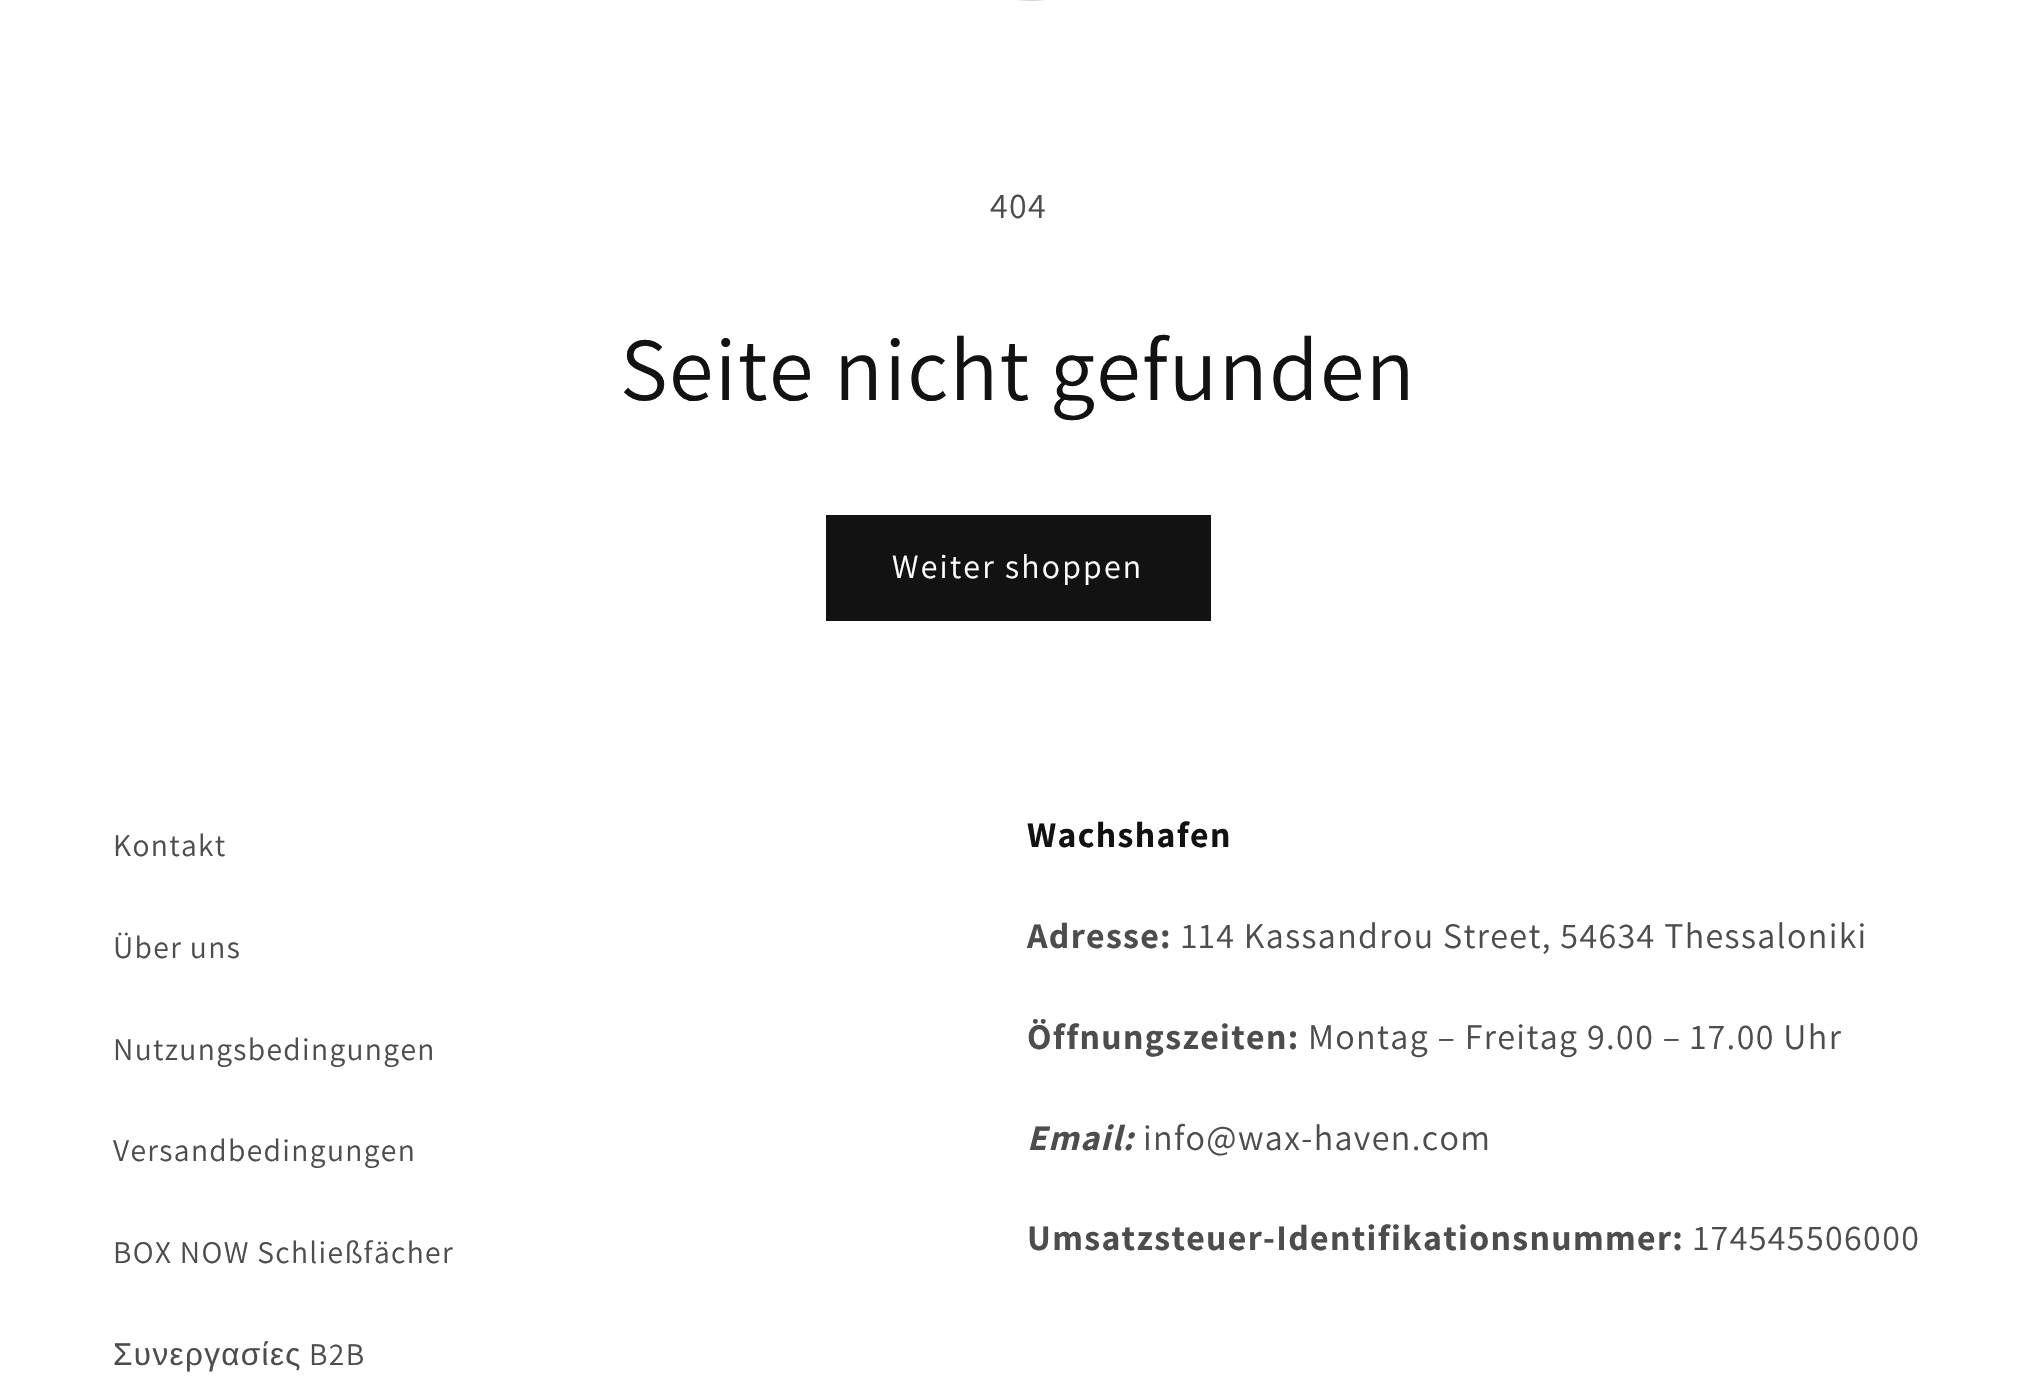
void draw(SkCanvas* canvas) {
	SkPaint fill;
	fill.setAntiAlias(true);
	auto makeFont = [&](const char* family, int weight, float size, bool italic = false) {
		SkFontStyle style(weight, SkFontStyle::kNormal_Width,
			italic ? SkFontStyle::kItalic_Slant : SkFontStyle::kUpright_Slant);
		SkFont result(fontMgr->matchFamilyStyle(family, style), size);
		result.setSubpixel(true);
		return result;
	};
	auto spacedText = [&](const char* s, float x, float y, const SkFont& font, const SkPaint& ink, float letter, float word) {
		std::vector<SkGlyphID> glyphs(font.countText(s, strlen(s), SkTextEncoding::kUTF8));
		std::vector<float> xs(glyphs.size());
		font.textToGlyphs(s, strlen(s), SkTextEncoding::kUTF8, glyphs);
		font.getXPos(glyphs, xs, x);
		float extra = 0;
		for (size_t i = 0; i < glyphs.size(); i++) {
			xs[i] += extra;
			extra += letter + word * (glyphs[i] == font.unicharToGlyph(' '));
		}
		canvas->drawTextBlob(SkTextBlob::MakeFromPosHGlyphs(glyphs, xs, y, font), 0, 0, ink);
	};
	auto box = [&](float l, float t, float r, float b) {
		canvas->drawRect(SkRect::MakeLTRB(l, t, r, b), fill);
	};
	auto picture = [&](const char* path, float l, float t, float r, float b) {
		auto image = SkImages::DeferredFromEncodedData(SkData::MakeFromFileName(path));
		canvas->drawImageRect(image, SkRect::MakeLTRB(l, t, r, b), SkSamplingOptions());
	};
	canvas->clear(0xFFFFFFFF);
	picture("image0.png", 1018, 0, 1045, 1);
	fill.setColor(0xFF121212);
	box(826, 515, 1211, 621);
	auto font1 = makeFont("Assistant", 400, 36);
	fill.setColor(0xFF4D4D4D);
	spacedText("404", 990, 218, font1, fill, 1.35f, 0);
	auto font2 = makeFont("Assistant", 400, 90);
	fill.setColor(0xFF121212);
	spacedText("Seite nicht gefunden", 620, 400, font2, fill, 1.35f, 0);
	auto font3 = makeFont("Assistant", 400, 33.75f);
	fill.setColor(0xFFFFFFFF);
	spacedText("Weiter shoppen", 892, 578, font3, fill, 2.25f, 0);
	auto font4 = makeFont("Assistant", 400, 31.5f);
	fill.setColor(0xFF4D4D4D);
	spacedText("Kontakt", 113, 856, font4, fill, 1.35f, 0);
	spacedText("Über uns", 113, 958, font4, fill, 1.35f, 0);
	spacedText("Nutzungsbedingungen", 113, 1060, font4, fill, 1.35f, 0);
	spacedText("Versandbedingungen", 113, 1161, font4, fill, 1.35f, 0);
	spacedText("BOX NOW Schließfächer", 113, 1263, font4, fill, 1.35f, 0);
	auto font5 = makeFont("Liberation Sans", 400, 31.5f);
	spacedText("Συνεργασίες", 113, 1365, font5, fill, 1.35f, 0);
	spacedText("B2B", 309, 1365, font4, fill, 1.35f, 0);
	auto font6 = makeFont("Assistant", 700, 36);
	fill.setColor(0xFF121212);
	spacedText("Wachshafen", 1027, 847, font6, fill, 1.35f, 0);
	fill.setColor(0xFF4D4D4D);
	spacedText("Adresse:", 1027, 948, font6, fill, 1.35f, 0);
	spacedText("114 Kassandrou Street, 54634 Thessaloniki", 1181, 948, font1, fill, 1.35f, 0);
	spacedText("Öffnungszeiten:", 1027, 1049, font6, fill, 1.35f, 0);
	spacedText("Montag – Freitag 9.00 – 17.00 Uhr", 1308, 1049, font1, fill, 1.35f, 0);
	auto font7 = makeFont("Assistant", 700, 36, true);
	spacedText("Email:", 1027, 1150, font7, fill, 1.35f, 0);
	spacedText("info@wax-haven.com", 1143, 1150, font1, fill, 1.35f, 0);
	spacedText("Umsatzsteuer-Identifikationsnummer:", 1027, 1250, font6, fill, 1.35f, 0);
	spacedText("174545506000", 1693, 1250, font1, fill, 1.35f, 0);
}
